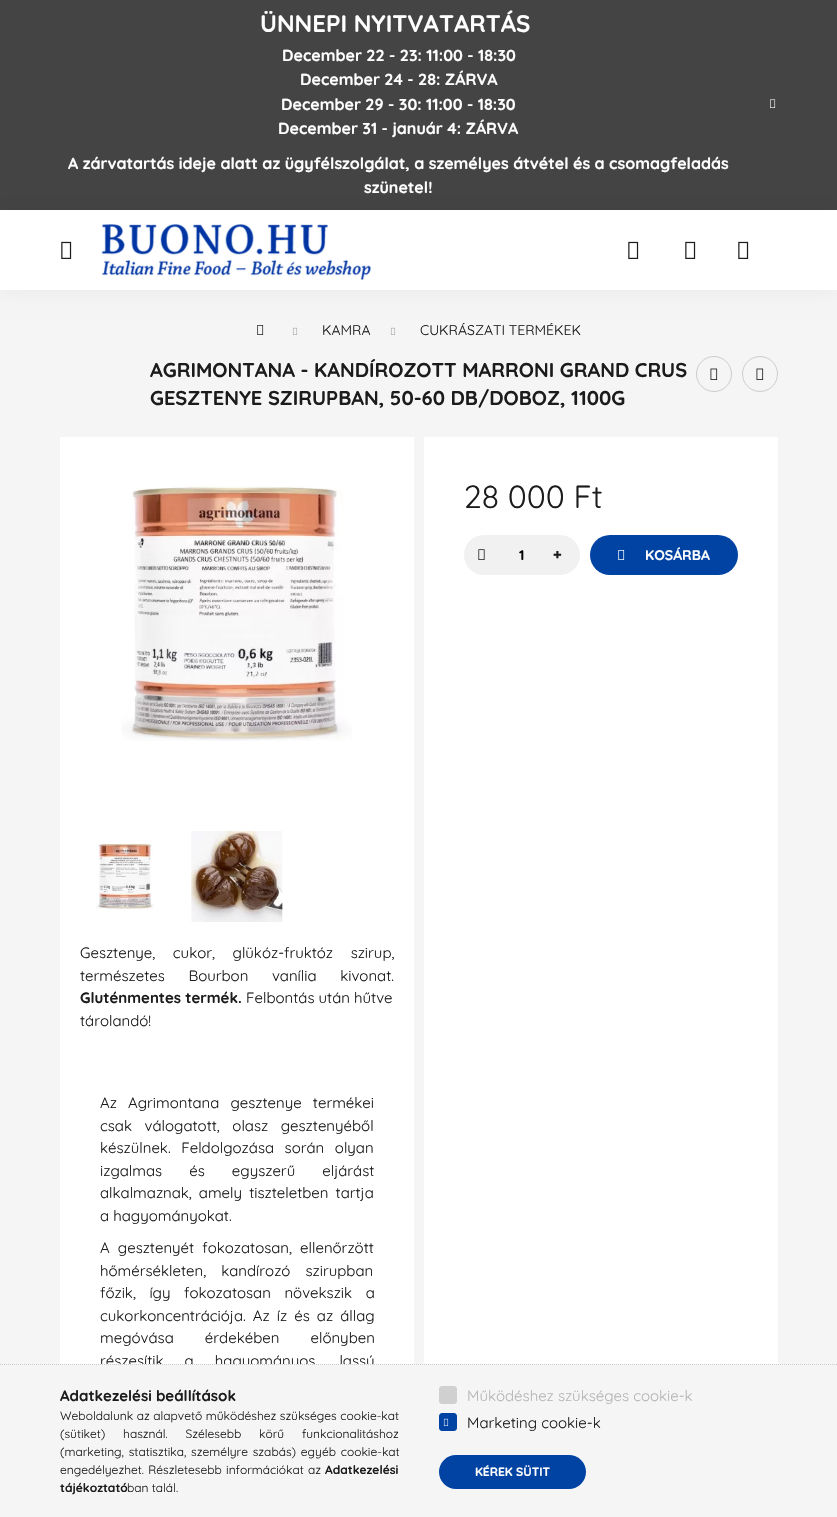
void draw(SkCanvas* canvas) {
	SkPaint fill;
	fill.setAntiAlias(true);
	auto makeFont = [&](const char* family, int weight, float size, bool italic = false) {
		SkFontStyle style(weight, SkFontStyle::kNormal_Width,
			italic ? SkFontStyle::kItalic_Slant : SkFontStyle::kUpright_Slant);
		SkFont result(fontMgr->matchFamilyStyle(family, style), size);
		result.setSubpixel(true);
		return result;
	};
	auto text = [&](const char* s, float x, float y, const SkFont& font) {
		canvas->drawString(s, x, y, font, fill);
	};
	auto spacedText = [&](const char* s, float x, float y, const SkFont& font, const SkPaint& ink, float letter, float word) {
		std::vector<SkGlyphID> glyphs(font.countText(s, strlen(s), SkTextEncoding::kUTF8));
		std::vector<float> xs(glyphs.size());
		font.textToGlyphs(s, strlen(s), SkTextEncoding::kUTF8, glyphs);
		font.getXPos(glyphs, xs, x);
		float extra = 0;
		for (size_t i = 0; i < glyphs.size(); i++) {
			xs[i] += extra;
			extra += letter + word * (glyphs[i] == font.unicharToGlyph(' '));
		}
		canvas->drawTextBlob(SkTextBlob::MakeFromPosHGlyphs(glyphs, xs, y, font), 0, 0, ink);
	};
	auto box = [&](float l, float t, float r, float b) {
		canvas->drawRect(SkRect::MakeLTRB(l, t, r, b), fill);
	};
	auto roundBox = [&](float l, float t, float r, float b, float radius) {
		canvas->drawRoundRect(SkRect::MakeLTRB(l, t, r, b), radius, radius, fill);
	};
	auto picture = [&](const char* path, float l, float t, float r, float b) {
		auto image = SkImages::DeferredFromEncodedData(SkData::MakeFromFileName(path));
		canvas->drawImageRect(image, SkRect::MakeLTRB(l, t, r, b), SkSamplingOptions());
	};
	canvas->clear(0xFFF5F5F5);
	fill.setColor(0xFF444444);
	box(0, 0, 837, 210);
	picture("image0.png", 770, 99, 776, 108);
	fill.setColor(0x0D000000);
	fill.setMaskFilter(SkMaskFilter::MakeBlur(kNormal_SkBlurStyle, 10));
	canvas->drawRect(SkRect::MakeLTRB(0, 210, 837, 290), fill);
	fill.setMaskFilter(nullptr);
	fill.setColor(0xFFFFFFFF);
	box(0, 210, 837, 290);
	picture("image1.png", 61, 241, 72, 259);
	picture("image2.png", 101, 224, 371, 280);
	picture("image1.png", 628, 241, 639, 259);
	picture("image1.png", 685, 241, 696, 259);
	picture("image1.png", 738, 241, 749, 259);
	picture("image3.png", 257, 325, 264, 335);
	picture("image4.png", 292, 327, 298, 335);
	picture("image4.png", 390, 327, 396, 335);
	fill.setStyle(SkPaint::kStroke_Style);
	fill.setStrokeWidth(1);
	fill.setColor(0xFFCCCCCC);
	canvas->drawCircle(714, 374, 17.5f, fill);
	picture("image5.png", 710, 368, 718, 380);
	canvas->drawCircle(760, 374, 17.5f, fill);
	picture("image5.png", 756, 368, 764, 380);
	fill.setStyle(SkPaint::kFill_Style);
	fill.setColor(0xFFFFFFFF);
	box(424, 437, 778, 1364);
	fill.setColor(0xFFF1F1F1);
	roundBox(464, 535, 580, 575, 20);
	picture("image6.png", 478, 549, 485, 560);
	fill.setColor(0xFF0043A3);
	roundBox(590, 535, 738, 575, 20);
	picture("image7.png", 618, 550, 625, 560);
	fill.setColor(0xFFFFFFFF);
	box(60, 437, 414, 1364);
	picture("image8.png", 121, 486, 352, 741);
	picture("image9.png", 96, 843, 154, 910);
	picture("image10.png", 191, 831, 283, 922);
	fill.setColor(0xFFD0D0D0);
	canvas->drawRoundRect(SkRect::MakeLTRB(439.5f, 1386.5f, 456.5f, 1403.5f), 2.5f, 2.5f, fill);
	fill.setStyle(SkPaint::kStroke_Style);
	canvas->drawRoundRect(SkRect::MakeLTRB(439.5f, 1386.5f, 456.5f, 1403.5f), 2.5f, 2.5f, fill);
	fill.setStyle(SkPaint::kFill_Style);
	fill.setColor(0xFF0043A3);
	canvas->drawRoundRect(SkRect::MakeLTRB(439.5f, 1413.5f, 456.5f, 1430.5f), 2.5f, 2.5f, fill);
	fill.setStyle(SkPaint::kStroke_Style);
	canvas->drawRoundRect(SkRect::MakeLTRB(439.5f, 1413.5f, 456.5f, 1430.5f), 2.5f, 2.5f, fill);
	picture("image11.png", 443, 1418, 449, 1426);
	fill.setStyle(SkPaint::kFill_Style);
	roundBox(439, 1455, 586, 1489, 17);
	auto font1 = makeFont("Quicksand", 700, 24);
	fill.setColor(0xFFFFFFFF);
	text("ÜNNEPI NYITVATARTÁS", 260, 32, font1);
	auto font2 = makeFont("Quicksand", 700, 16);
	text("December 22 - 23: 11:00 - 18:30", 282, 61, font2);
	text("December 24 - 28: ZÁRVA", 300, 85, font2);
	text("December 29 - 30: 11:00 - 18:30", 281, 110, font2);
	text("December 31 - január 4: ZÁRVA", 278, 134, font2);
	text("A zárvatartás ideje alatt az ügyfélszolgálat, a személyes átvétel és a csomagfeladás", 68, 169, font2);
	text("szünetel!", 364, 193, font2);
	auto font3 = makeFont("Quicksand", 400, 14);
	fill.setColor(0xFF1C1C1C);
	text("KAMRA", 322, 335, font3);
	text("CUKRÁSZATI TERMÉKEK", 420, 335, font3);
	auto font4 = makeFont("Quicksand", 700, 20);
	text("AGRIMONTANA - KANDÍROZOTT MARRONI GRAND CRUS", 150, 377, font4);
	text("GESZTENYE SZIRUPBAN, 50-60 DB/DOBOZ, 1100G", 150, 405, font4);
	auto font5 = makeFont("Quicksand", 400, 32);
	text("28 000 Ft", 464, 508, font5);
	auto font6 = makeFont("Quicksand", 700, 14);
	fill.setColor(0xFF000000);
	text("1", 519, 560, font6);
	auto font7 = makeFont("Noto Sans", 900, 15);
	fill.setColor(0xFF1C1C1C);
	text("+", 553, 560, font7);
	fill.setColor(0xFFFFFFFF);
	text("KOSÁRBA", 645, 560, font6);
	auto font8 = makeFont("Quicksand", 400, 15);
	fill.setColor(0xFF1C1C1C);
	spacedText("Gesztenye, cukor, glükóz-fruktóz szirup,", 80, 958, font8, fill, 0, 13.5f);
	spacedText("természetes Bourbon vanília kivonat.", 80, 981, font8, fill, 0, 19.5f);
	auto font9 = makeFont("Quicksand", 700, 15);
	text("Gluténmentes termék.", 80, 1003, font9);
	text("Felbontás után hűtve", 246, 1003, font8);
	text("tárolandó!", 80, 1026, font8);
	spacedText("Az Agrimontana gesztenye termékei", 100, 1108, font8, fill, 0, 7);
	spacedText("csak válogatott, olasz gesztenyéből", 100, 1131, font8, fill, 0, 8.5f);
	spacedText("készülnek. Feldolgozása során olyan", 100, 1153, font8, fill, 0, 6.5f);
	spacedText("izgalmas és egyszerű eljárást", 100, 1176, font8, fill, 0, 23);
	spacedText("alkalmaznak, amely tiszteletben tartja", 100, 1198, font8, fill, 0, 3);
	text("a hagyományokat.", 100, 1221, font8);
	spacedText("A gesztenyét fokozatosan, ellenőrzött", 100, 1253, font8, fill, 0, 4);
	spacedText("hőmérsékleten, kandírozó szirupban", 100, 1276, font8, fill, 0, 11);
	spacedText("főzik, így fokozatosan növekszik a", 100, 1298, font8, fill, 0, 9.5f);
	spacedText("cukorkoncentrációja. Az íz és az állag", 100, 1321, font8, fill, 0, 3);
	spacedText("megóvása érdekében előnyben", 100, 1343, font8, fill, 0, 27);
	spacedText("részesítik a hagyományos, lassú", 100, 1366, font8, fill, 0, 17);
	fill.setColor(0xFFF5F5F5);
	box(100, 1364, 373, 1369);
	fill.setStyle(SkPaint::kStroke_Style);
	fill.setColor(0xFFCCCCCC);
	fill.setPathEffect(SkDashPathEffect::Make({{1, 1}}, 0));
	canvas->drawPath(SkPathBuilder().moveTo(0, 1364.5f).lineTo(837, 1364.5f).detach(), fill);
	fill.setPathEffect(nullptr);
	fill.setStyle(SkPaint::kFill_Style);
	fill.setColor(0xFF1C1C1C);
	text("Adatkezelési beállítások", 60, 1401, font9);
	auto font10 = makeFont("Quicksand", 400, 12);
	spacedText("Weboldalunk az alapvető működéshez szükséges cookie-kat", 60, 1420, font10, fill, 0, 0.25f);
	spacedText("(sütiket) használ. Szélesebb körű funkcionalitáshoz", 60, 1438, font10, fill, 0, 14.5f);
	spacedText("(marketing, statisztika, személyre szabás) egyéb cookie-kat", 60, 1456, font10, fill, 0, 1.5f);
	spacedText("engedélyezhet. Részletesebb információkat az", 60, 1474, font10, fill, 0, 1);
	auto font11 = makeFont("Quicksand", 700, 12);
	text("Adatkezelési", 325, 1474, font11);
	text("tájékoztató", 60, 1492, font11);
	text("ban talál.", 127, 1492, font10);
	fill.setColor(0xFFB6B6B6);
	text("Működéshez szükséges cookie-k", 467, 1401, font8);
	fill.setColor(0xFF1C1C1C);
	text("Marketing cookie-k", 467, 1428, font8);
	fill.setColor(0xFFFFFFFF);
	text("KÉREK SÜTIT", 475, 1476, font11);
}
